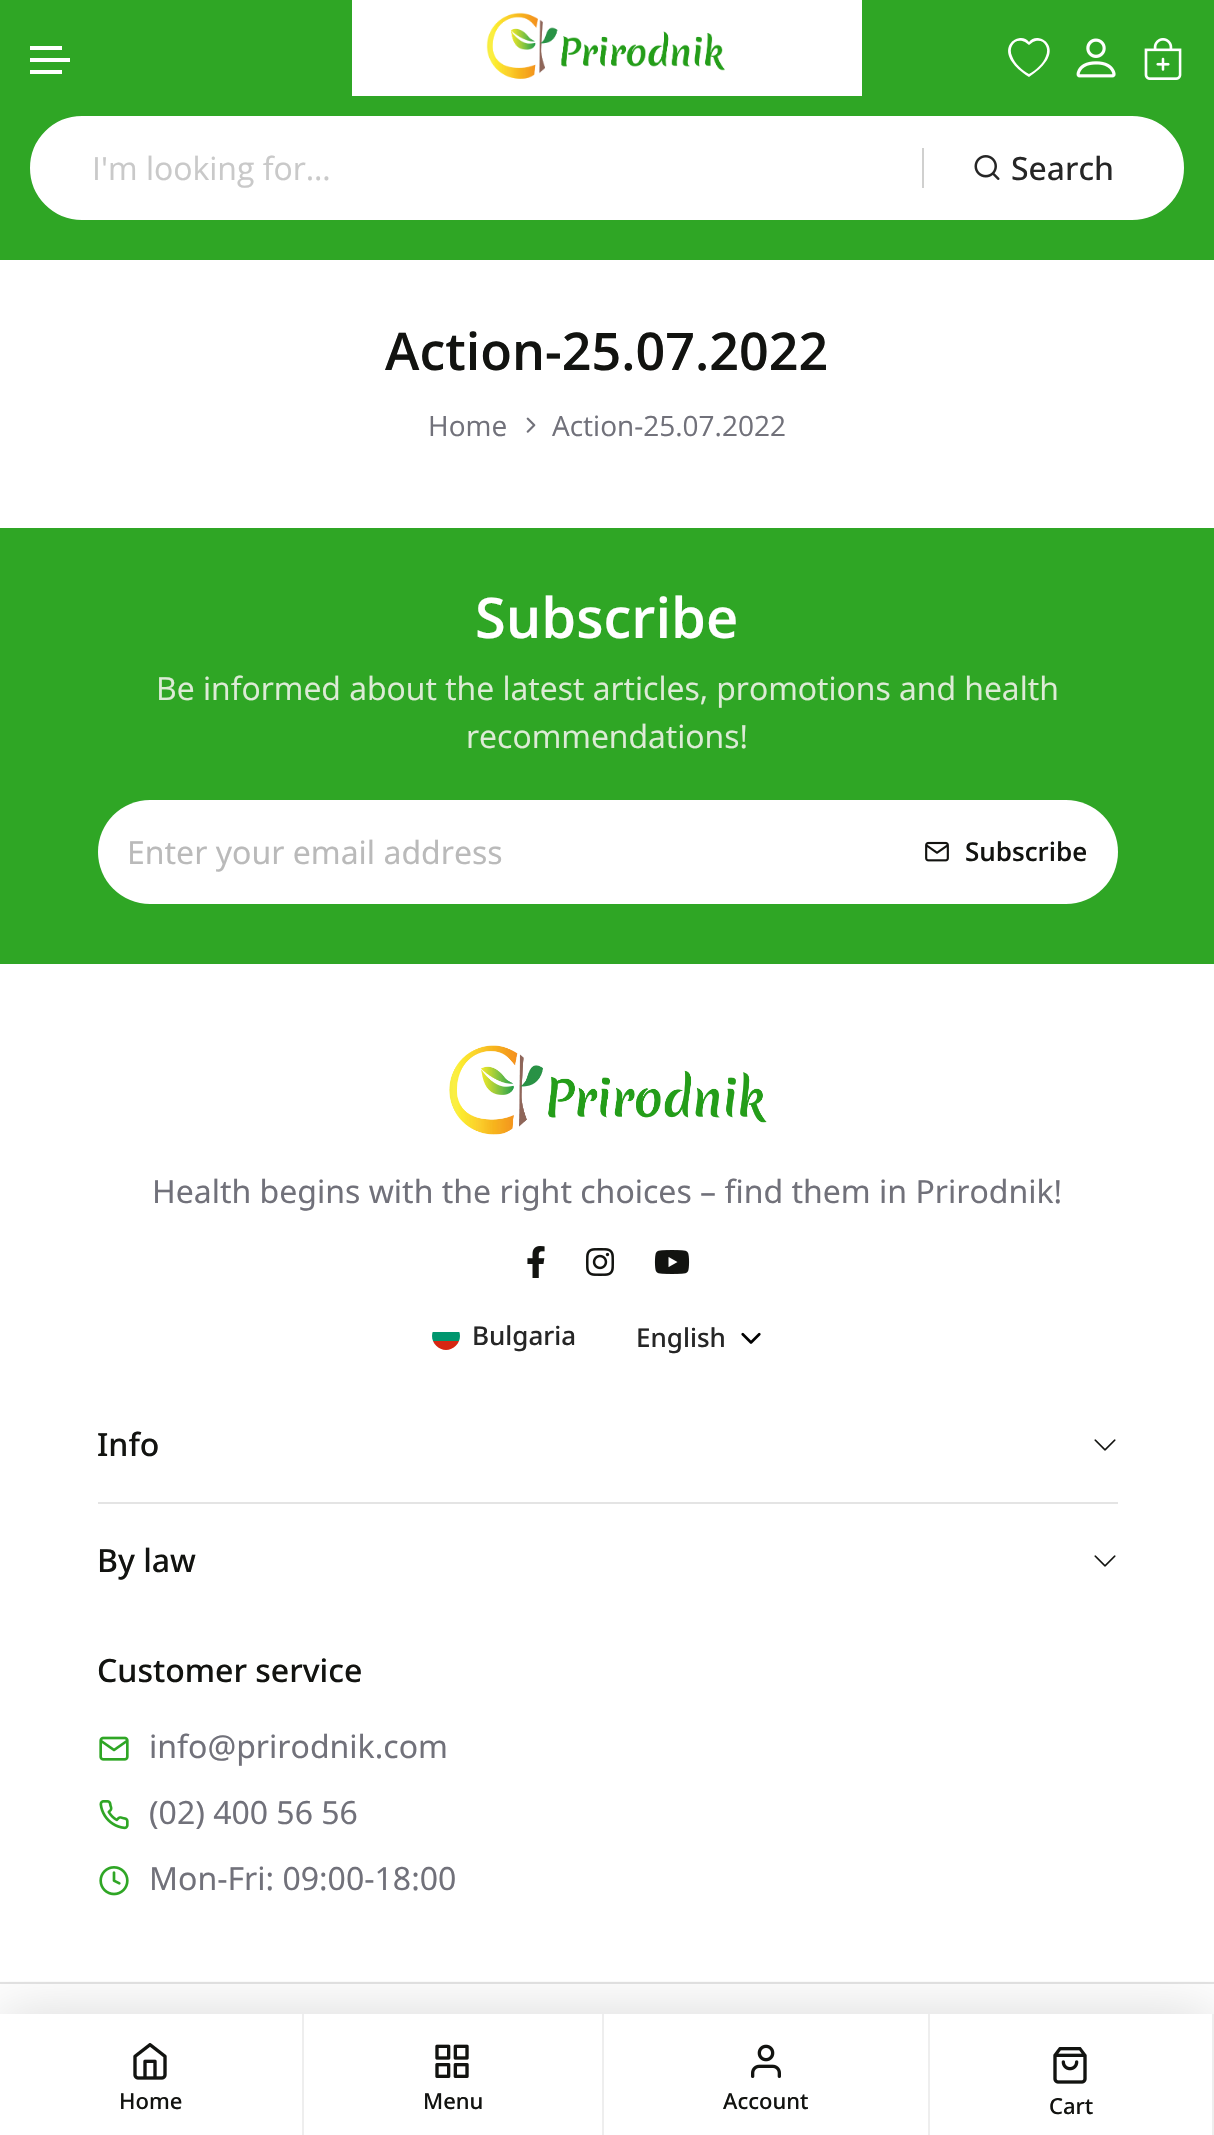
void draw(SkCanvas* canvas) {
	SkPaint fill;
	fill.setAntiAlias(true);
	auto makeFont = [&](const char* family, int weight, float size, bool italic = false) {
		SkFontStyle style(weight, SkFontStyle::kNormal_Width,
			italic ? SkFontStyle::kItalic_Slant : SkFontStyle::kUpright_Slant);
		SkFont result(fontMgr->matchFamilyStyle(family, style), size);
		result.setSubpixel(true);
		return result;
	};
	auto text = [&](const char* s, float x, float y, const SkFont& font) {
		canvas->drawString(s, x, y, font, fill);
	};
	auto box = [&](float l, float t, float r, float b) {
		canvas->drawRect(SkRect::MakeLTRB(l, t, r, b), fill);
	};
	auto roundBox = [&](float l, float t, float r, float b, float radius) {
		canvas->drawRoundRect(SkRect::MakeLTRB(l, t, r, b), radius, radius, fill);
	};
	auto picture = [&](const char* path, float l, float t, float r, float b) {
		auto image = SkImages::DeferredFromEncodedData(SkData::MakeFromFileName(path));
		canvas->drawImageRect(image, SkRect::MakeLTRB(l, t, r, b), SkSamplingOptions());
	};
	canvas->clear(0xFFFFFFFF);
	fill.setColor(0xFF2FA625);
	box(0, 0, 1214, 260);
	fill.setColor(0xFFFFFFFF);
	box(30, 46, 62, 50);
	box(30, 58, 70, 62);
	box(30, 70, 62, 74);
	box(352, 0, 862, 96);
	picture("image0.png", 486, 12, 725, 79);
	canvas->drawPath(SkPathBuilder().moveTo(1029, 45).lineTo(1025, 42).cubicTo(1015, 37, 1008, 47, 1012, 56).cubicTo(1015, 64, 1022, 70, 1029, 74).cubicTo(1036, 70, 1043, 64, 1046, 56).cubicTo(1050, 47, 1043, 37, 1033, 42).close().moveTo(1029, 77).cubicTo(987, 50, 1020, 29, 1029, 42).cubicTo(1038, 29, 1071, 50, 1029, 77).close().detach(), fill);
	picture("image1.png", 1076, 38, 1116, 78);
	picture("image2.png", 1144, 38, 1182, 80);
	canvas->drawRoundRect(SkRect::MakeLTRB(31, 117, 1183, 219), 51, 51, fill);
	fill.setStyle(SkPaint::kStroke_Style);
	fill.setStrokeWidth(2);
	canvas->drawRoundRect(SkRect::MakeLTRB(31, 117, 1183, 219), 51, 51, fill);
	fill.setStyle(SkPaint::kFill_Style);
	fill.setColor(0xFFD0D0CF);
	box(922, 148, 924, 188);
	picture("image3.png", 974, 155, 1000, 180);
	picture("image4.png", 526, 417, 536, 433);
	fill.setColor(0xFF2FA625);
	box(0, 528, 1214, 964);
	fill.setColor(0xFFFFFFFF);
	roundBox(98, 800, 1118, 904, 52);
	picture("image5.png", 925, 841, 949, 862);
	fill.setColor(0xFFE4E4E4);
	box(0, 1982, 1214, 1984);
	picture("image6.png", 449, 1045, 767, 1135);
	picture("image7.png", 527, 1246, 545, 1278);
	picture("image8.png", 586, 1248, 614, 1276);
	picture("image9.png", 654, 1250, 690, 1274);
	canvas->save();
	canvas->clipPath(SkPathBuilder().moveTo(446, 1322).cubicTo(453.5f, 1322, 460, 1328.5f, 460, 1336).cubicTo(460, 1343.5f, 453.5f, 1350, 446, 1350).cubicTo(438.5f, 1350, 432, 1343.5f, 432, 1336).cubicTo(432, 1328.5f, 438.5f, 1322, 446, 1322).close().detach(), true);
	fill.setColor(0xFFD62612);
	box(433, 1341, 459, 1350);
	fill.setColor(0xFF00966E);
	box(432, 1332, 460, 1341);
	canvas->restore();
	picture("image10.png", 741, 1332, 761, 1344);
	picture("image11.png", 1094, 1439, 1116, 1451);
	fill.setColor(0xFFE4E4E4);
	box(98, 1502, 1118, 1504);
	picture("image11.png", 1094, 1555, 1116, 1567);
	picture("image12.png", 99, 1736, 129, 1761);
	picture("image13.png", 99, 1800, 129, 1830);
	picture("image14.png", 99, 1866, 129, 1896);
	canvas->save();
	canvas->clipRect(SkRect::MakeLTRB(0, 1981, 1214, 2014));
	fill.setColor(0x26000000);
	fill.setMaskFilter(SkMaskFilter::MakeBlur(kNormal_SkBlurStyle, 30));
	canvas->drawRect(SkRect::MakeLTRB(0, 2014, 1214, 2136), fill);
	fill.setMaskFilter(nullptr);
	canvas->restore();
	fill.setColor(0xFFEEEEEE);
	box(302, 2014, 304, 2135);
	picture("image15.png", 133, 2043, 167, 2080);
	box(602, 2014, 604, 2135);
	picture("image16.png", 435, 2044, 469, 2078);
	box(928, 2014, 930, 2135);
	picture("image17.png", 751, 2044, 781, 2078);
	box(1212, 2014, 1214, 2135);
	picture("image18.png", 1053, 2047, 1087, 2084);
	auto font1 = makeFont("Open Sans", 400, 32);
	fill.setColor(0xFFC9C9C9);
	text("I'm looking for…", 92, 180, font1);
	auto font2 = makeFont("Open Sans", 500, 32);
	fill.setColor(0xFF262626);
	text("Search", 1011, 180, font2);
	auto font3 = makeFont("Open Sans", 600, 52);
	fill.setColor(0xFF121310);
	text("Action-25.07.2022", 385, 370, font3);
	auto font4 = makeFont("Open Sans", 400, 28);
	fill.setColor(0xFF71717A);
	text("Home", 428, 436, font4);
	text("Action-25.07.2022", 552, 436, font4);
	auto font5 = makeFont("Open Sans", 600, 56);
	fill.setColor(0xFFFFFFFF);
	text("Subscribe", 475, 638, font5);
	fill.setColor(0xFFDDEBD6);
	text("Be informed about the latest articles, promotions and health", 156, 700, font1);
	text("recommendations!", 466, 748, font1);
	auto font6 = makeFont("Noto Sans", 400, 32);
	fill.setColor(0xFFBABABA);
	text("Enter your email address", 127, 864, font6);
	auto font7 = makeFont("Open Sans", 600, 26);
	fill.setColor(0xFF121310);
	text("Subscribe", 965, 861, font7);
	fill.setColor(0xFF71717A);
	text("Health begins with the right choices – find them in Prirodnik!", 152, 1203, font6);
	auto font8 = makeFont("Noto Sans", 500, 26);
	fill.setColor(0xFF262626);
	text("Bulgaria", 472, 1345, font8);
	text("English", 636, 1347, font8);
	auto font9 = makeFont("Noto Sans", 500, 32);
	fill.setColor(0xFF121310);
	text("Info", 97, 1456, font9);
	text("By law", 97, 1572, font9);
	text("Customer service", 97, 1682, font9);
	fill.setColor(0xFF71717A);
	text("info@prirodnik.com", 149, 1758, font6);
	text("(02) 400 56 56", 149, 1824, font6);
	text("Mon-Fri: 09:00-18:00", 149, 1890, font6);
	auto font10 = makeFont("Noto Sans", 500, 22);
	fill.setColor(0xFF121310);
	text("Home", 119, 2109, font10);
	text("Menu", 423, 2109, font10);
	text("Account", 723, 2109, font10);
	text("Cart", 1049, 2114, font10);
}
